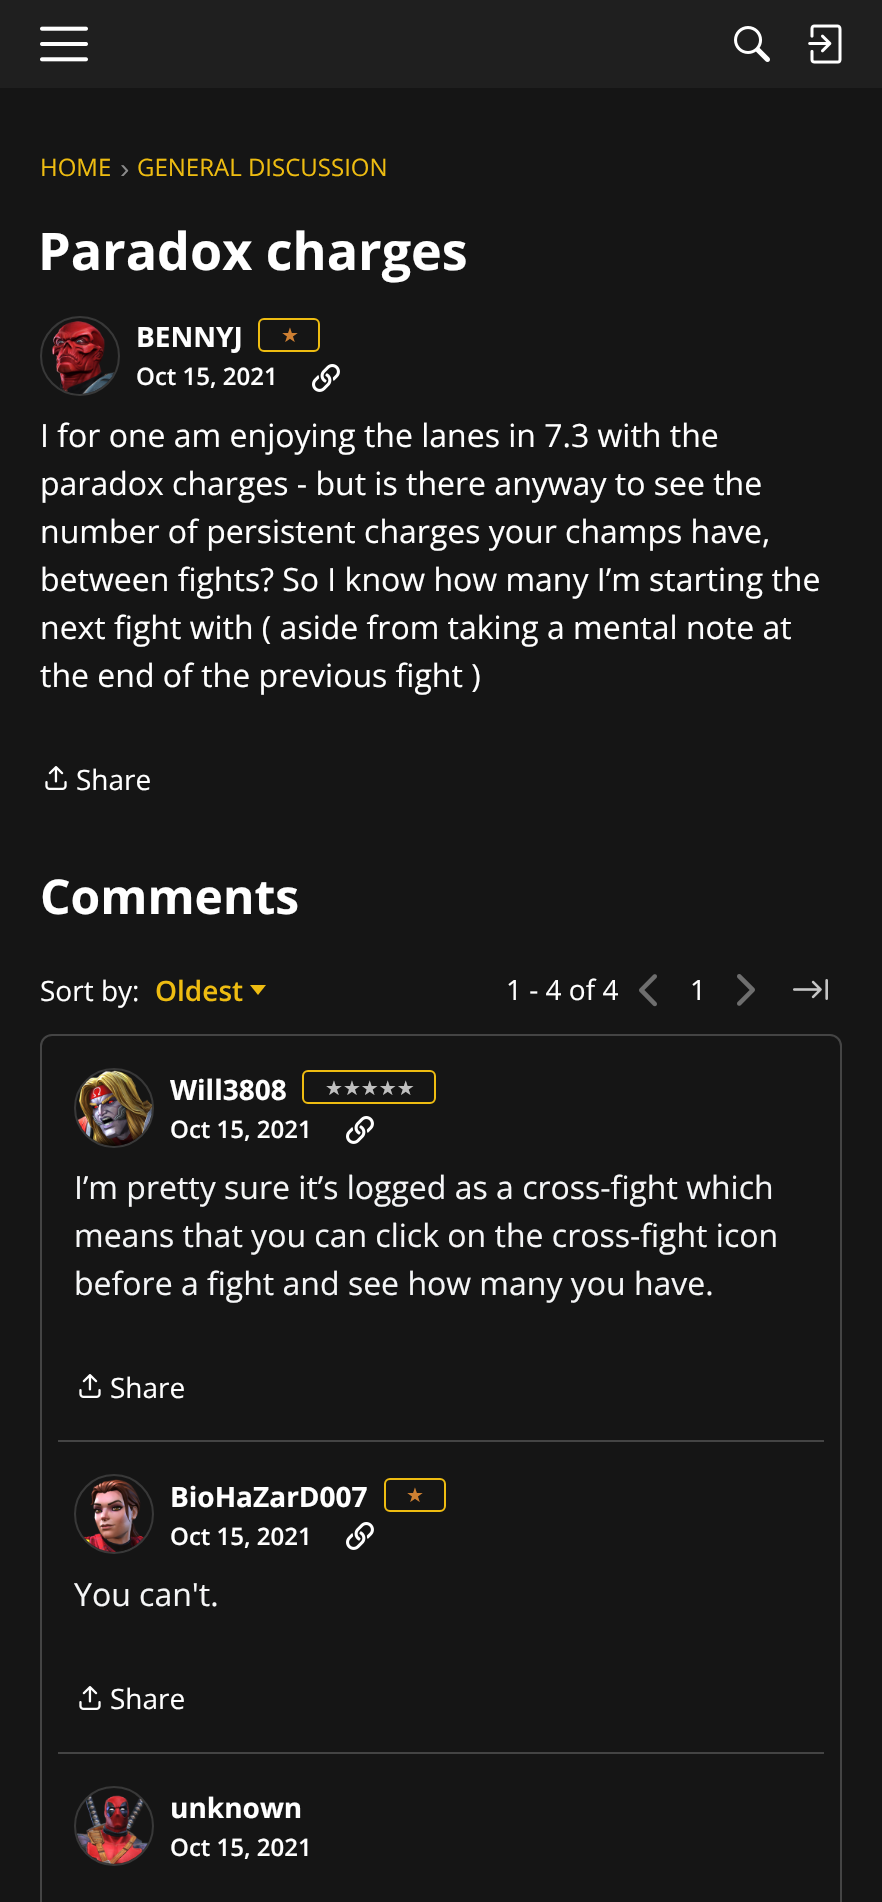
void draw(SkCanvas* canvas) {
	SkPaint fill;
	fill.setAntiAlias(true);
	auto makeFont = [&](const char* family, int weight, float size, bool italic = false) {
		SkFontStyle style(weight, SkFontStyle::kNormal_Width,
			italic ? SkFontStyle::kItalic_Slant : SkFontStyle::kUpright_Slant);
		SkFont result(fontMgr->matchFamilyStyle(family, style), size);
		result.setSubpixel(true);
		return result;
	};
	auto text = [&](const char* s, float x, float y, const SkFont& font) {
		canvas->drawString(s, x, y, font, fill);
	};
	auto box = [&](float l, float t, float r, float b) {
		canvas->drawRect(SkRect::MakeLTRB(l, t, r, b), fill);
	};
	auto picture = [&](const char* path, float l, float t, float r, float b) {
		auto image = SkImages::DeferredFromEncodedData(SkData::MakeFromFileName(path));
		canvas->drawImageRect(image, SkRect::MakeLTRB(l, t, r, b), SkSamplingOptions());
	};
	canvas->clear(0xFF151515);
	fill.setColor(0xFF1F1F1F);
	box(0, 0, 882, 88);
	picture("image0.png", 40, 26, 88, 62);
	picture("image1.png", 734, 26, 770, 62);
	picture("image2.png", 808, 24, 842, 64);
	fill.setStyle(SkPaint::kStroke_Style);
	fill.setStrokeWidth(2);
	fill.setColor(0xFF383838);
	canvas->drawCircle(80, 356, 39, fill);
	picture("image3.png", 52, 321, 114, 394);
	fill.setColor(0xFFEEBC11);
	canvas->drawRoundRect(SkRect::MakeLTRB(259, 319, 319, 351), 5, 5, fill);
	picture("image4.png", 312, 364, 340, 392);
	picture("image5.png", 45, 766, 67, 790);
	fill.setStyle(SkPaint::kFill_Style);
	canvas->drawPath(SkPathBuilder().moveTo(250, 985).lineTo(266, 985).lineTo(258, 995).close().detach(), fill);
	picture("image6.png", 639, 974, 657, 1007);
	picture("image7.png", 737, 974, 755, 1006);
	picture("image8.png", 793, 979, 828, 1000);
	fill.setStyle(SkPaint::kStroke_Style);
	fill.setColor(0xFF444444);
	canvas->drawRoundRect(SkRect::MakeLTRB(41, 1035, 841, 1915), 11, 11, fill);
	fill.setColor(0xFF383838);
	canvas->drawCircle(114, 1108, 39, fill);
	picture("image9.png", 78, 1070, 152, 1146);
	fill.setColor(0xFFEEBC11);
	canvas->drawRoundRect(SkRect::MakeLTRB(303, 1071, 435, 1103), 5, 5, fill);
	picture("image4.png", 346, 1116, 374, 1144);
	picture("image5.png", 79, 1374, 101, 1398);
	fill.setStyle(SkPaint::kFill_Style);
	fill.setColor(0xFF444444);
	box(58, 1440, 824, 1442);
	fill.setStyle(SkPaint::kStroke_Style);
	fill.setColor(0xFF383838);
	canvas->drawCircle(114, 1514, 39, fill);
	picture("image10.png", 84, 1479, 144, 1552);
	fill.setColor(0xFFEEBC11);
	canvas->drawRoundRect(SkRect::MakeLTRB(385, 1479, 445, 1511), 5, 5, fill);
	picture("image4.png", 346, 1522, 374, 1550);
	picture("image5.png", 79, 1686, 101, 1710);
	fill.setStyle(SkPaint::kFill_Style);
	fill.setColor(0xFF444444);
	box(58, 1752, 824, 1754);
	fill.setStyle(SkPaint::kStroke_Style);
	fill.setColor(0xFF383838);
	canvas->drawCircle(114, 1826, 39, fill);
	picture("image11.png", 77, 1795, 148, 1864);
	auto font1 = makeFont("Open Sans", 400, 24);
	fill.setStyle(SkPaint::kFill_Style);
	fill.setColor(0xFFEEBC11);
	text("HOME", 40, 176, font1);
	auto font2 = makeFont("Liberation Sans", 400, 28);
	fill.setColor(0xFF8A8A8A);
	text("›", 120, 178, font2);
	fill.setColor(0xFFEEBC11);
	text("GENERAL DISCUSSION", 137, 176, font1);
	auto font3 = makeFont("Open Sans", 700, 52);
	fill.setColor(0xFFFFFFFF);
	text("Paradox charges", 38, 270, font3);
	auto font4 = makeFont("Open Sans", 700, 28);
	text("BENNYJ", 136, 347, font4);
	auto font5 = makeFont("DejaVu Sans", 400, 20);
	fill.setColor(0xFFCD7F32);
	text("★", 281, 342, font5);
	auto font6 = makeFont("Open Sans", 600, 24);
	fill.setColor(0xFFFFFFFF);
	text("Oct 15, 2021", 136, 385, font6);
	auto font7 = makeFont("Open Sans", 400, 32);
	text("I for one am enjoying the lanes in 7.3 with the", 40, 447, font7);
	text("paradox charges - but is there anyway to see the", 40, 495, font7);
	text("number of persistent charges your champs have,", 40, 543, font7);
	text("between fights? So I know how many I’m starting the", 40, 591, font7);
	text("next fight with ( aside from taking a mental note at", 40, 639, font7);
	text("the end of the previous fight )", 40, 687, font7);
	auto font8 = makeFont("Open Sans", 400, 28);
	text("Share", 76, 790, font8);
	auto font9 = makeFont("Open Sans", 700, 48);
	text("Comments", 40, 914, font9);
	text("Sort by:", 40, 1001, font8);
	auto font10 = makeFont("Open Sans", 600, 28);
	fill.setColor(0xFFEEBC11);
	text("Oldest", 155, 1001, font10);
	fill.setColor(0xFFFFFFFF);
	text("1 - 4 of 4", 506, 1000, font8);
	text("1", 690, 1000, font8);
	text("Will3808", 170, 1100, font4);
	fill.setColor(0xFFC0C0C0);
	text("★★★★★", 325, 1095, font5);
	fill.setColor(0xFFFFFFFF);
	text("Oct 15, 2021", 170, 1138, font6);
	fill.setColor(0xFFF5F6F7);
	text("I’m pretty sure it’s logged as a cross-fight which", 74, 1199, font7);
	text("means that you can click on the cross-fight icon", 74, 1247, font7);
	text("before a fight and see how many you have.", 74, 1295, font7);
	fill.setColor(0xFFFFFFFF);
	text("Share", 110, 1398, font8);
	text("BioHaZarD007", 170, 1507, font4);
	fill.setColor(0xFFCD7F32);
	text("★", 406, 1502, font5);
	fill.setColor(0xFFFFFFFF);
	text("Oct 15, 2021", 170, 1545, font6);
	fill.setColor(0xFFF5F6F7);
	text("You can't.", 74, 1606, font7);
	fill.setColor(0xFFFFFFFF);
	text("Share", 110, 1709, font8);
	text("unknown", 170, 1818, font4);
	text("Oct 15, 2021", 170, 1856, font6);
}
